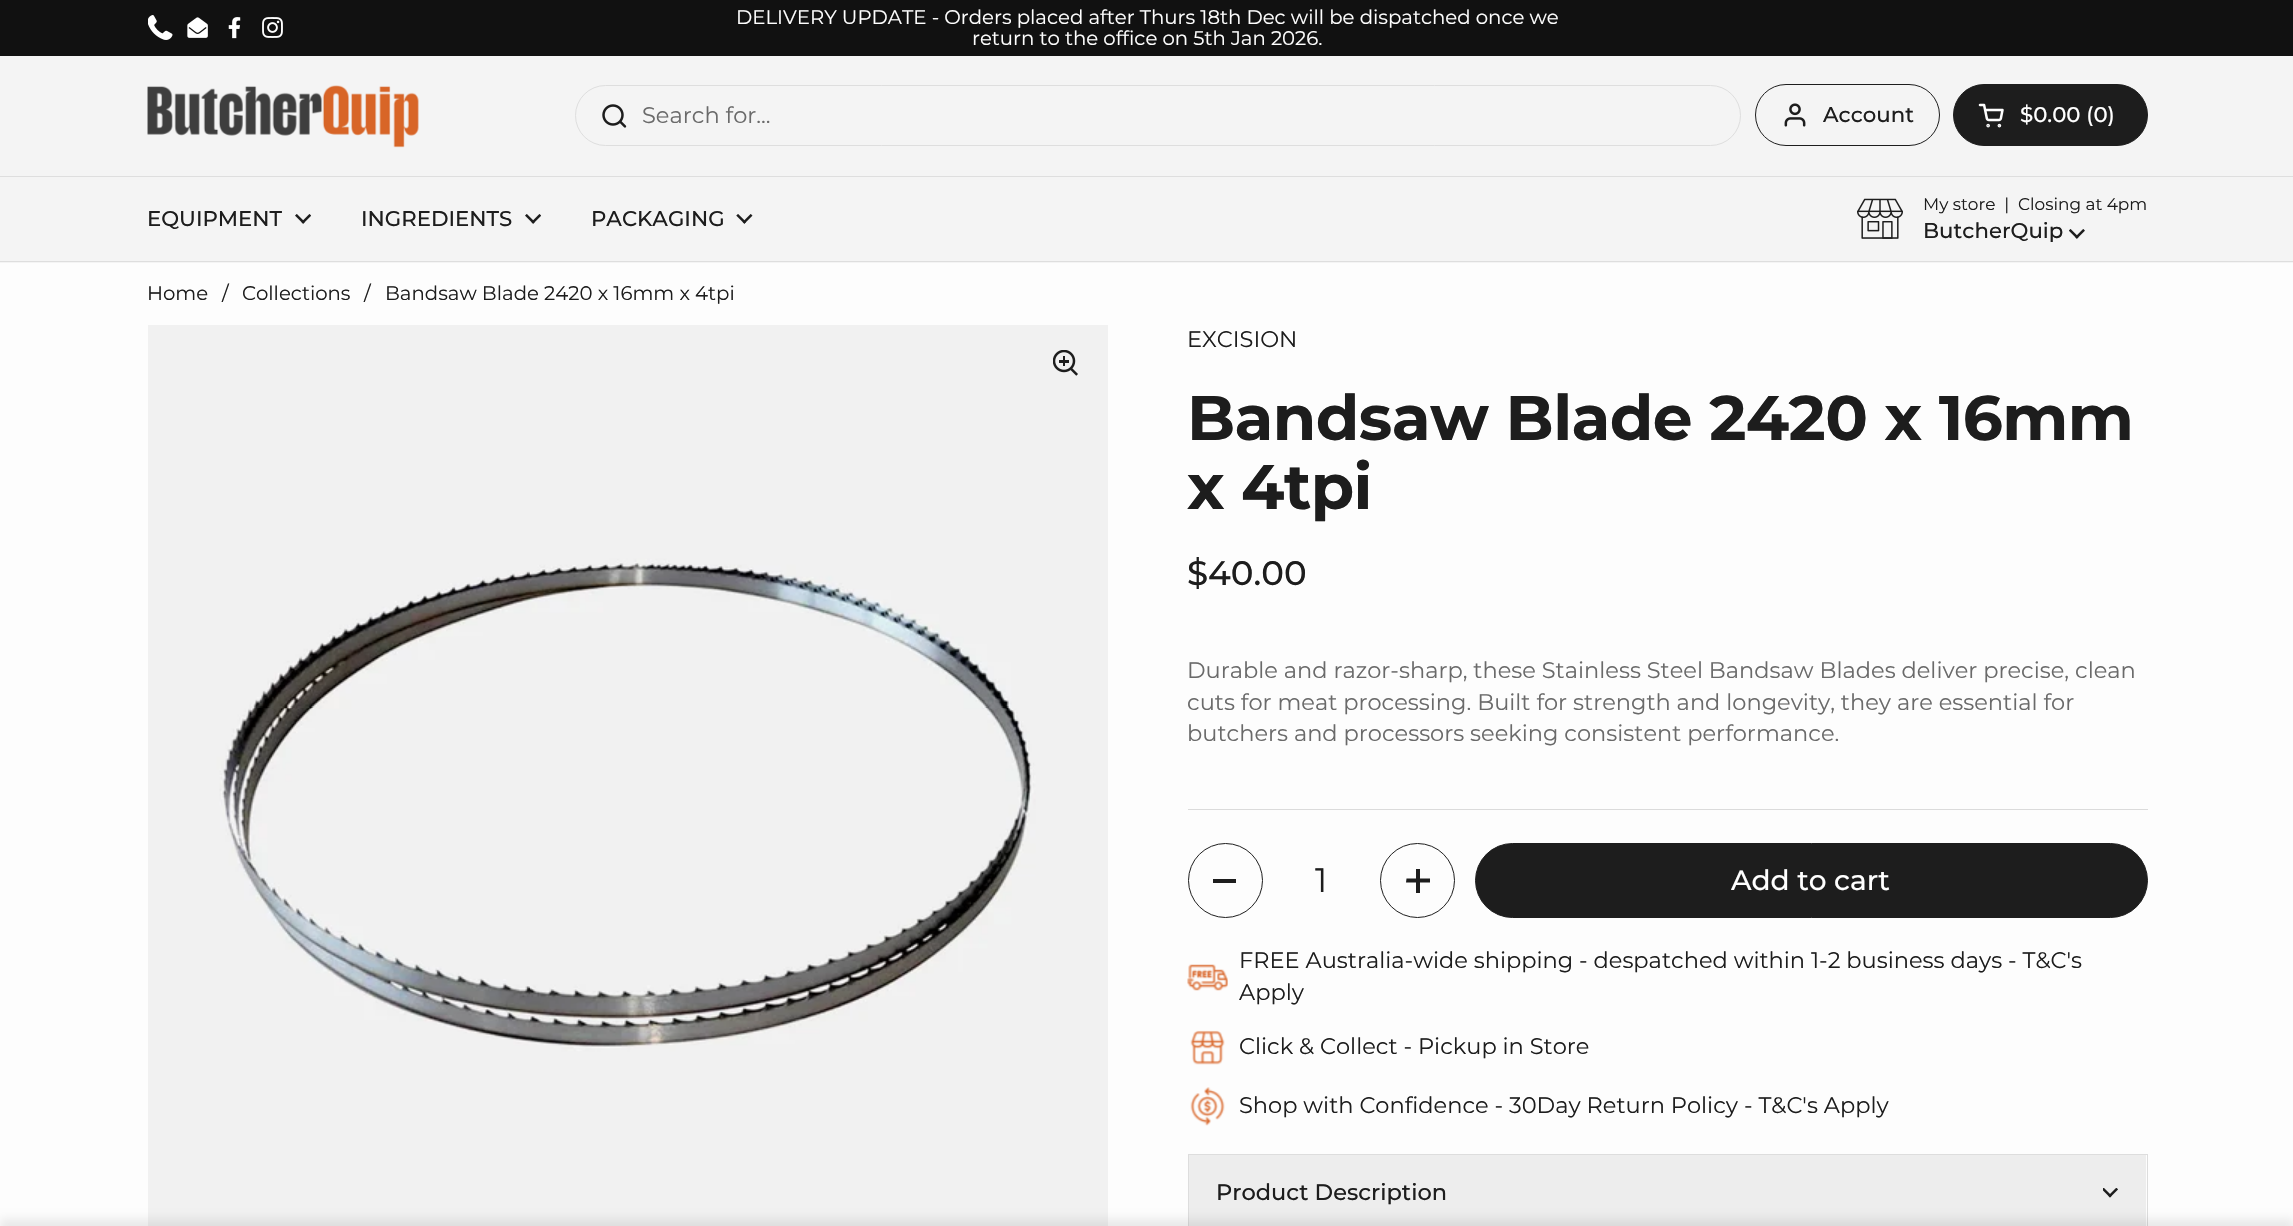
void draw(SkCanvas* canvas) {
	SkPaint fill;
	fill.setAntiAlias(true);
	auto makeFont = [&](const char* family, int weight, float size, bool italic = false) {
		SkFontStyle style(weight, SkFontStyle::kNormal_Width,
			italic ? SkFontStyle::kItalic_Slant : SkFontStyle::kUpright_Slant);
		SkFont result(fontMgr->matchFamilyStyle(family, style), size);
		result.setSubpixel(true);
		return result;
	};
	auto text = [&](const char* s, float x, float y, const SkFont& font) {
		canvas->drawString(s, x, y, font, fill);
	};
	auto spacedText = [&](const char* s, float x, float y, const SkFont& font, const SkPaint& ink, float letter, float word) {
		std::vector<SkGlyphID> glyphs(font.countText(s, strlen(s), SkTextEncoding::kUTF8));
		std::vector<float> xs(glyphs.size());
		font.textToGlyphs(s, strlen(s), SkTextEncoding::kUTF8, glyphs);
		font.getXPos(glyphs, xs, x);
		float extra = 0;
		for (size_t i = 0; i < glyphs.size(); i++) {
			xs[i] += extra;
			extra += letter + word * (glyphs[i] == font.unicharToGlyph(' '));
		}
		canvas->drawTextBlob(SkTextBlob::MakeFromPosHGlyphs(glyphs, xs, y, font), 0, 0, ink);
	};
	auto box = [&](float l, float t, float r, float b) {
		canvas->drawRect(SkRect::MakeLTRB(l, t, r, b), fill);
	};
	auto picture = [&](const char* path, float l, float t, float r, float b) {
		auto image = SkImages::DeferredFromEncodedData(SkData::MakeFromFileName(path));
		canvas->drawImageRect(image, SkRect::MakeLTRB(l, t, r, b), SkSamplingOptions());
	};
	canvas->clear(0xFFFDFDFD);
	fill.setColor(0xFF111111);
	box(0, 0, 2293, 56);
	picture("image0.png", 148, 15, 173, 40);
	picture("image1.png", 187, 17, 208, 38);
	picture("image2.png", 228, 17, 241, 39);
	picture("image3.png", 262, 17, 283, 38);
	fill.setColor(0xFFF4F4F4);
	box(0, 56, 2293, 263);
	fill.setColor(0xFFDEDEDE);
	box(0, 176, 2293, 177);
	picture("image4.png", 147, 85, 419, 148);
	fill.setStyle(SkPaint::kStroke_Style);
	fill.setStrokeWidth(1);
	canvas->drawRoundRect(SkRect::MakeLTRB(575.5f, 85.5f, 1740.5f, 145.5f), 30, 30, fill);
	picture("image5.png", 602, 104, 627, 128);
	fill.setColor(0xFF1D1D1D);
	canvas->drawRoundRect(SkRect::MakeLTRB(1755.5f, 84.5f, 1939.5f, 145.5f), 30.5f, 30.5f, fill);
	picture("image6.png", 1784, 103, 1806, 127);
	fill.setStyle(SkPaint::kFill_Style);
	canvas->drawRoundRect(SkRect::MakeLTRB(1953.5f, 84.5f, 2147.5f, 145.5f), 30.5f, 30.5f, fill);
	fill.setStyle(SkPaint::kStroke_Style);
	canvas->drawRoundRect(SkRect::MakeLTRB(1953.5f, 84.5f, 2147.5f, 145.5f), 30.5f, 30.5f, fill);
	picture("image7.png", 1978, 103, 2004, 128);
	fill.setStyle(SkPaint::kFill_Style);
	fill.setColor(0xFFDEDEDE);
	box(0, 261, 2293, 262);
	picture("image8.png", 295, 214, 311, 224);
	picture("image8.png", 525, 214, 541, 224);
	picture("image9.png", 736, 214, 753, 224);
	picture("image10.png", 1857, 198, 1903, 239);
	picture("image11.png", 2069, 229, 2085, 239);
	picture("image12.png", 148, 325, 1108, 1226);
	picture("image13.png", 1053, 350, 1078, 376);
	fill.setColor(0xFFDBDBDB);
	box(1188, 809, 2148, 810);
	fill.setStyle(SkPaint::kStroke_Style);
	fill.setColor(0xFF1D1D1D);
	canvas->drawCircle(1225.5f, 880.5f, 37, fill);
	fill.setStyle(SkPaint::kFill_Style);
	box(1213, 879, 1236, 883);
	fill.setStyle(SkPaint::kStroke_Style);
	canvas->drawCircle(1417.5f, 880.5f, 37, fill);
	fill.setStyle(SkPaint::kFill_Style);
	box(1416, 869, 1420, 893);
	canvas->drawPath(SkPathBuilder().moveTo(1430, 878.5f).lineTo(1430, 882.5f).lineTo(1406, 882.5f).lineTo(1406.5f, 878.5f).close().detach(), fill);
	canvas->drawRoundRect(SkRect::MakeLTRB(1475.5f, 843.5f, 2147.5f, 917.5f), 37, 37, fill);
	fill.setStyle(SkPaint::kStroke_Style);
	canvas->drawRoundRect(SkRect::MakeLTRB(1475.5f, 843.5f, 2147.5f, 917.5f), 37, 37, fill);
	picture("image14.png", 1187, 964, 1228, 991);
	picture("image15.png", 1190, 1030, 1225, 1065);
	picture("image16.png", 1190, 1087, 1225, 1126);
	fill.setColor(0xFFDDDDDD);
	canvas->drawRect(SkRect::MakeLTRB(1188.5f, 1154.5f, 2147.5f, 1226.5f), fill);
	fill.setStyle(SkPaint::kFill_Style);
	fill.setColor(0xFFEDEDED);
	box(1189, 1155, 2146, 1226);
	picture("image17.png", 2103, 1188, 2118, 1198);
	fill.setColor(0x14000000);
	fill.setMaskFilter(SkMaskFilter::MakeBlur(kNormal_SkBlurStyle, 5));
	canvas->drawRect(SkRect::MakeLTRB(0, 1219, 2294, 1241), fill);
	fill.setMaskFilter(nullptr);
	auto font1 = makeFont("Montserrat", 400, 19.7f);
	fill.setColor(0xFFFFFFFF);
	text("DELIVERY UPDATE - Orders placed after Thurs 18th Dec will be dispatched once we", 736, 24, font1);
	text("return to the office on 5th Jan 2026.", 972, 45, font1);
	auto font2 = makeFont("Montserrat", 400, 22.5f);
	fill.setColor(0xFF6A6A6A);
	text("Search for...", 642, 123, font2);
	auto font3 = makeFont("Montserrat", 500, 21.25f);
	fill.setColor(0xFF1D1D1D);
	text("Account", 1823, 122, font3);
	fill.setColor(0xFFFFFFFF);
	text("$0.00 (0)", 2020, 122, font3);
	fill.setColor(0xFF1D1D1D);
	text("EQUIPMENT", 147, 226, font3);
	text("INGREDIENTS", 361, 226, font3);
	text("PACKAGING", 591, 226, font3);
	auto font4 = makeFont("Montserrat", 400, 16.9f);
	text("My store  |  Closing at 4pm", 1923, 210, font4);
	text("ButcherQuip", 1923, 238, font3);
	text("Home", 147, 300, font1);
	text("/", 222, 300, font1);
	text("Collections", 242, 300, font1);
	text("/", 364, 300, font1);
	text("Bandsaw Blade 2420 x 16mm x 4tpi", 385, 300, font1);
	text("EXCISION", 1187, 347, font2);
	auto font5 = makeFont("Montserrat", 700, 63);
	spacedText("Bandsaw Blade 2420 x 16mm", 1187, 440, font5, fill, -0.6f, 0);
	spacedText("x 4tpi", 1187, 509, font5, fill, -0.6f, 0);
	auto font6 = makeFont("Montserrat", 500, 34);
	text("$40.00", 1187, 585, font6);
	fill.setColor(0xFF6A6A6A);
	text("Durable and razor-sharp, these Stainless Steel Bandsaw Blades deliver precise, clean", 1187, 678, font2);
	text("cuts for meat processing. Built for strength and longevity, they are essential for", 1187, 710, font2);
	text("butchers and processors seeking consistent performance.", 1187, 741, font2);
	auto font7 = makeFont("Montserrat", 400, 34);
	fill.setColor(0xFF1D1D1D);
	text("1", 1315, 892, font7);
	auto font8 = makeFont("Montserrat", 500, 28);
	fill.setColor(0xFFFFFFFF);
	text("Add to cart", 1731, 890, font8);
	fill.setColor(0xFF1D1D1D);
	text("FREE Australia-wide shipping - despatched within 1-2 business days - T&C's", 1239, 968, font2);
	text("Apply", 1239, 1000, font2);
	text("Click & Collect - Pickup in Store", 1239, 1054, font2);
	text("Shop with Confidence - 30‑Day Return Policy - T&C's Apply", 1239, 1113, font2);
	auto font9 = makeFont("Montserrat", 500, 22.5f);
	text("Product Description", 1216, 1200, font9);
}
